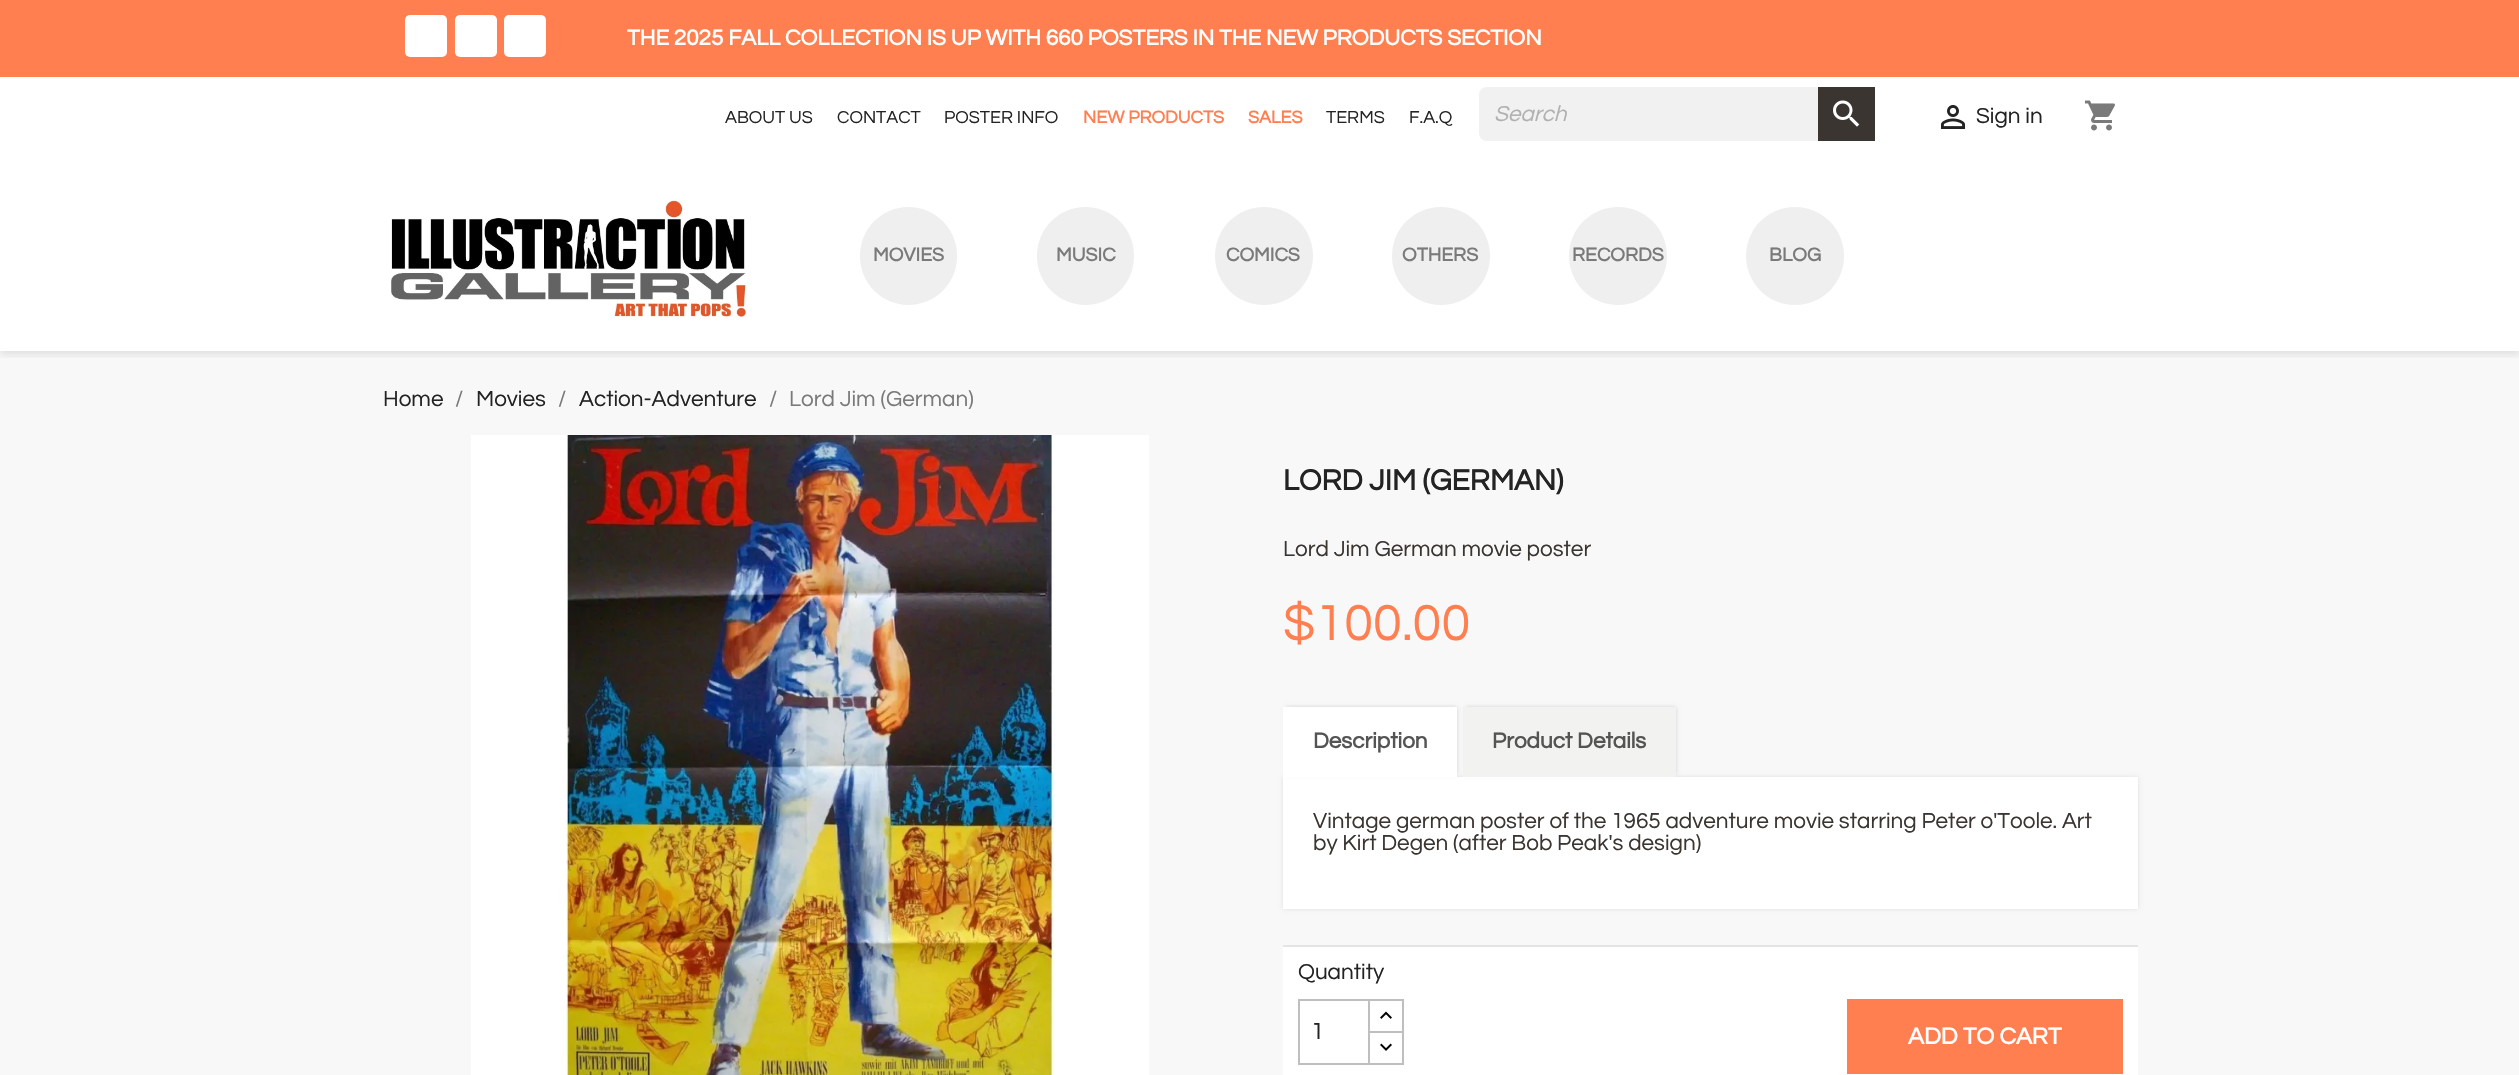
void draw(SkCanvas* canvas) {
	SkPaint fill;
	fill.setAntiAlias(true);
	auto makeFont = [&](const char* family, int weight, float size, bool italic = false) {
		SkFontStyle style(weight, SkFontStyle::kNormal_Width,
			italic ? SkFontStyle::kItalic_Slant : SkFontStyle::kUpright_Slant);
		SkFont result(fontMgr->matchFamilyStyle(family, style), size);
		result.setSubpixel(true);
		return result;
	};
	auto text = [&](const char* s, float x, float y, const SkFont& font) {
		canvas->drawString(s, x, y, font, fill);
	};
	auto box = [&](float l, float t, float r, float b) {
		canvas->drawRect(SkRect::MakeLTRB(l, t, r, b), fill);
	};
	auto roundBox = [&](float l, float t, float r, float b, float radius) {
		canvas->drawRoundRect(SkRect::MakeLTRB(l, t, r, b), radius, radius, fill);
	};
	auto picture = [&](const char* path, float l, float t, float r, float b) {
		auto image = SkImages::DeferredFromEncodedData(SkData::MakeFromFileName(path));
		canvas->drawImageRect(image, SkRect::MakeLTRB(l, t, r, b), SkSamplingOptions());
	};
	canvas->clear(0xFFFFFFFF);
	fill.setColor(0xFFF8F8F8);
	box(0, 351, 2519, 1075);
	canvas->save();
	canvas->clipRect(SkRect::MakeLTRB(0, 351, 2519, 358));
	fill.setColor(0x1C000000);
	fill.setMaskFilter(SkMaskFilter::MakeBlur(kNormal_SkBlurStyle, 4));
	canvas->drawRect(SkRect::MakeLTRB(0, 3, 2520, 354), fill);
	fill.setMaskFilter(nullptr);
	canvas->restore();
	fill.setColor(0xFFFF7F50);
	box(0, 0, 2519, 77);
	fill.setColor(0xFFFFFFFF);
	roundBox(405, 15, 447, 57, 5);
	roundBox(455, 15, 497, 57, 5);
	roundBox(504, 15, 546, 57, 5);
	fill.setColor(0xFFF1F1F1);
	roundBox(1479, 87, 1875, 141, 8);
	fill.setColor(0xFF3B3532);
	box(1818, 87, 1875, 141);
	picture("image0.png", 1833, 100, 1860, 127);
	picture("image1.png", 1940, 105, 1966, 129);
	picture("image2.png", 2085, 100, 2115, 131);
	picture("image3.png", 391, 199, 747, 317);
	fill.setColor(0xFFEFEFEF);
	roundBox(860, 207, 957, 305, 48.5f);
	roundBox(1037, 207, 1134, 305, 48.5f);
	canvas->drawCircle(1264, 256, 49, fill);
	canvas->drawCircle(1441, 256, 49, fill);
	canvas->drawCircle(1618, 256, 49, fill);
	canvas->drawCircle(1795, 256, 49, fill);
	fill.setColor(0xFFFFFFFF);
	box(471, 435, 1149, 1075);
	picture("image4.png", 565, 435, 1055, 1075);
	fill.setColor(0x1A000000);
	fill.setMaskFilter(SkMaskFilter::MakeBlur(kNormal_SkBlurStyle, 2));
	canvas->drawRect(SkRect::MakeLTRB(1283, 777, 2138, 909), fill);
	fill.setMaskFilter(nullptr);
	fill.setColor(0xFFFFFFFF);
	box(1283, 777, 2138, 909);
	fill.setColor(0x26000000);
	fill.setMaskFilter(SkMaskFilter::MakeBlur(kNormal_SkBlurStyle, 2));
	canvas->drawRect(SkRect::MakeLTRB(1286, 707, 1457, 774), fill);
	fill.setMaskFilter(nullptr);
	fill.setColor(0xFFFFFFFF);
	box(1283, 707, 1457, 777);
	fill.setColor(0x26000000);
	fill.setMaskFilter(SkMaskFilter::MakeBlur(kNormal_SkBlurStyle, 2));
	canvas->drawRect(SkRect::MakeLTRB(1466, 707, 1676, 774), fill);
	fill.setMaskFilter(nullptr);
	fill.setColor(0xFFF2F2F0);
	box(1463, 707, 1676, 777);
	fill.setColor(0xFFFFFFFF);
	box(1283, 947, 2138, 1075);
	fill.setColor(0xFFE4E4E4);
	box(1283, 945, 2138, 947);
	fill.setStyle(SkPaint::kStroke_Style);
	fill.setStrokeWidth(2);
	fill.setColor(0xFFBFBFBF);
	canvas->drawRect(SkRect::MakeLTRB(1369, 1000, 1403, 1033), fill);
	fill.setStyle(SkPaint::kFill_Style);
	fill.setColor(0xFFFFFFFF);
	box(1370, 1033, 1402, 1034);
	fill.setStyle(SkPaint::kStroke_Style);
	fill.setColor(0xFFBFBFBF);
	canvas->drawRect(SkRect::MakeLTRB(1369, 1032, 1403, 1064), fill);
	canvas->drawRect(SkRect::MakeLTRB(1299, 1000, 1369, 1064), fill);
	picture("image5.png", 1380, 1011, 1392, 1019);
	picture("image6.png", 1380, 1043, 1392, 1051);
	fill.setStyle(SkPaint::kFill_Style);
	fill.setColor(0xFFFF7F50);
	box(1847, 999, 2123, 1074);
	auto font1 = makeFont("Questrial", 700, 22.5f);
	fill.setColor(0xFFFFFFFF);
	text("THE 2025 FALL COLLECTION IS UP WITH 660 POSTERS IN THE NEW PRODUCTS SECTION", 627, 45, font1);
	auto font2 = makeFont("Questrial", 400, 18);
	fill.setColor(0xFF232323);
	text("ABOUT US", 725, 123, font2);
	text("CONTACT", 837, 123, font2);
	text("POSTER INFO", 944, 123, font2);
	auto font3 = makeFont("Questrial", 700, 18);
	fill.setColor(0xFFFF7F50);
	text("NEW PRODUCTS", 1083, 123, font3);
	text("SALES", 1248, 123, font3);
	fill.setColor(0xFF232323);
	text("TERMS", 1326, 123, font2);
	text("F.A.Q", 1409, 123, font2);
	auto font4 = makeFont("Questrial", 400, 22.5f, true);
	fill.setColor(0xFFB1B1B1);
	text("Search", 1494, 121, font4);
	auto font5 = makeFont("Questrial", 400, 22.5f);
	fill.setColor(0xFF232323);
	text("Sign in", 1976, 123, font5);
	auto font6 = makeFont("Questrial", 700, 19.5f);
	fill.setColor(0xFF7A7A7A);
	text("MOVIES", 873, 261, font6);
	text("MUSIC", 1056, 261, font6);
	text("COMICS", 1226, 261, font6);
	text("OTHERS", 1402, 261, font6);
	text("RECORDS", 1572, 261, font6);
	text("BLOG", 1769, 261, font6);
	fill.setColor(0xFF232323);
	text("Home", 383, 406, font5);
	fill.setColor(0xFF7A7A7A);
	text("/", 455, 406, font5);
	fill.setColor(0xFF232323);
	text("Movies", 476, 406, font5);
	fill.setColor(0xFF7A7A7A);
	text("/", 558, 406, font5);
	fill.setColor(0xFF232323);
	text("Action-Adventure", 579, 406, font5);
	fill.setColor(0xFF7A7A7A);
	text("/", 769, 406, font5);
	text("Lord Jim (German)", 789, 406, font5);
	auto font7 = makeFont("Questrial", 700, 30);
	fill.setColor(0xFF232323);
	text("LORD JIM (GERMAN)", 1283, 490, font7);
	fill.setColor(0xFF3B3532);
	text("Lord Jim German movie poster", 1283, 556, font5);
	auto font8 = makeFont("Questrial", 400, 52.5f);
	fill.setColor(0xFFFF7F50);
	text("$100.00", 1283, 640, font8);
	fill.setColor(0xFF545454);
	text("Description", 1313, 748, font1);
	text("Product Details", 1492, 748, font1);
	fill.setColor(0xFF3B3532);
	text("Vintage german poster of the 1965 adventure movie starring Peter o'Toole. Art", 1313, 828, font5);
	text("by Kirt Degen (after Bob Peak's design)", 1313, 850, font5);
	fill.setColor(0xFF232323);
	text("Quantity", 1298, 979, font5);
	auto font9 = makeFont("Questrial", 400, 24);
	text("1", 1311, 1039, font9);
	auto font10 = makeFont("Questrial", 700, 24);
	fill.setColor(0xFFFFFFFF);
	text("ADD TO CART", 1908, 1044, font10);
}
